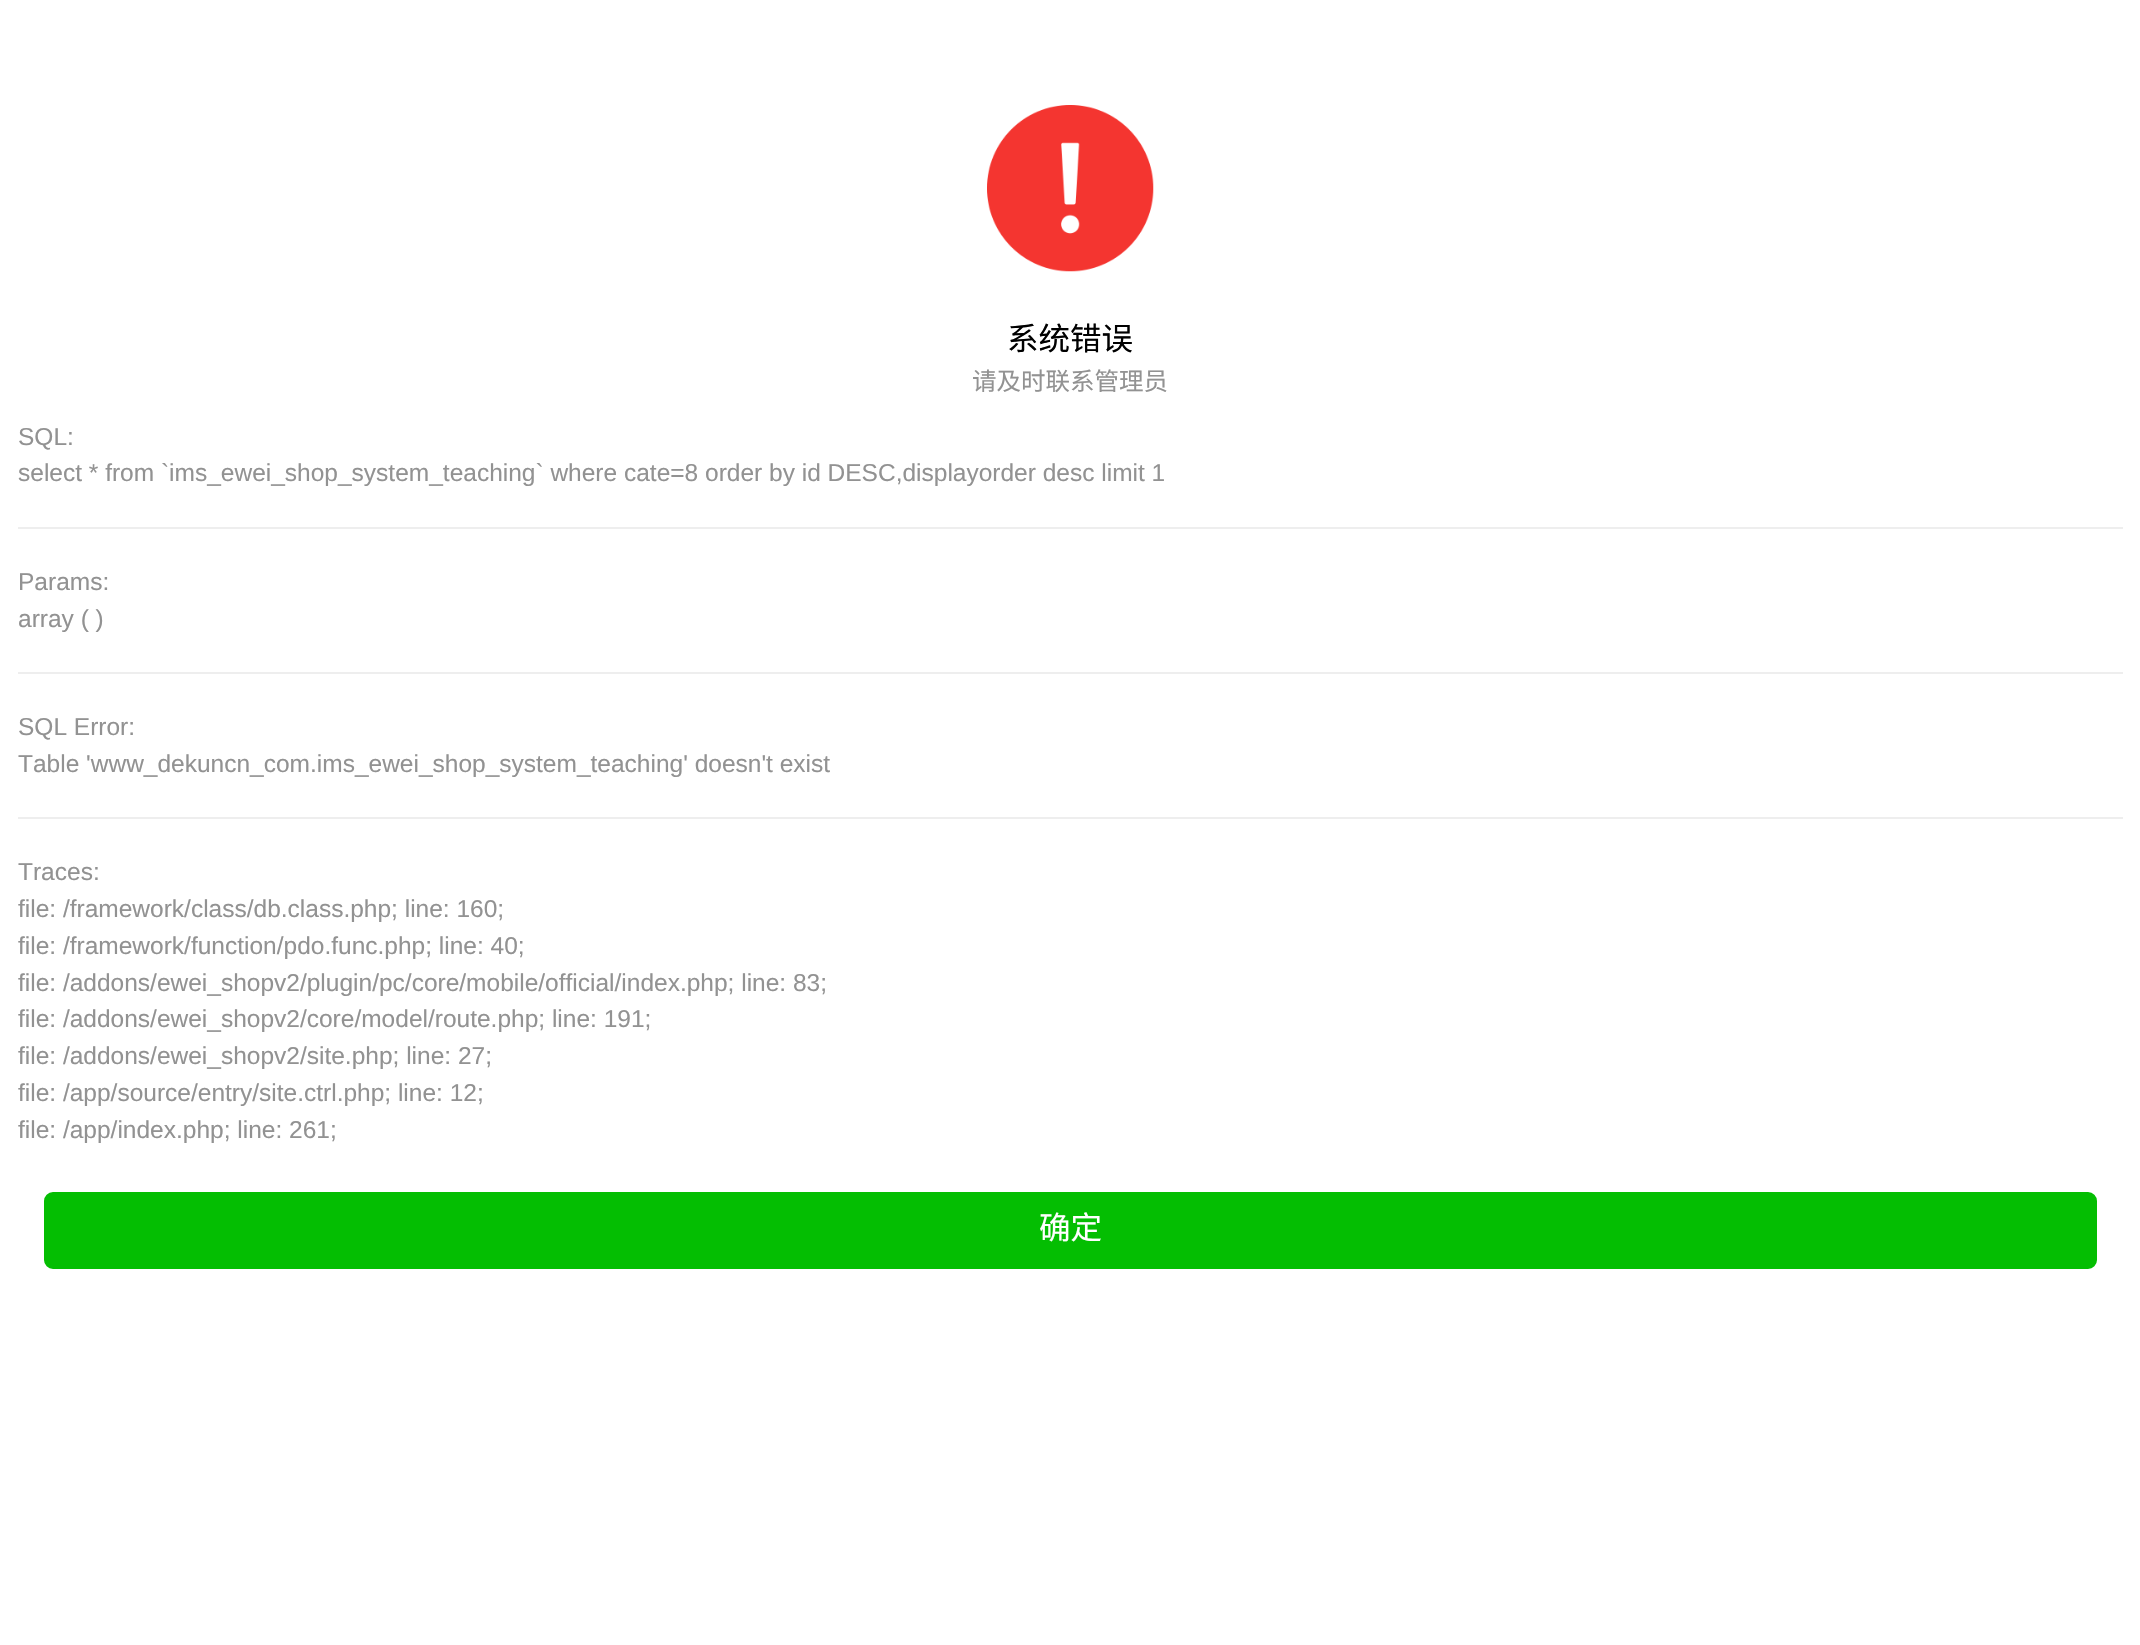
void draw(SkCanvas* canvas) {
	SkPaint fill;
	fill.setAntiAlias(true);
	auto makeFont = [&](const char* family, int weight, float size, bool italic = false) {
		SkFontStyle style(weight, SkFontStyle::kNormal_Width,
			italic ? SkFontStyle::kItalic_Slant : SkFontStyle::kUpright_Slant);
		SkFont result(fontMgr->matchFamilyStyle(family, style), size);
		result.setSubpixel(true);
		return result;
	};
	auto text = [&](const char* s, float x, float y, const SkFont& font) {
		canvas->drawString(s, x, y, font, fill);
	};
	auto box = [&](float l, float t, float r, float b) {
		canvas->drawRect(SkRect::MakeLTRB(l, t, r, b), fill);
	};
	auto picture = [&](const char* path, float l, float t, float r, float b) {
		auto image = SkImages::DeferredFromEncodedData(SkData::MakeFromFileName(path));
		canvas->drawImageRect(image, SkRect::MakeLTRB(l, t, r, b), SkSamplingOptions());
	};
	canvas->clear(0xFFFFFFFF);
	picture("image0.png", 987, 105, 1154, 272);
	fill.setColor(0xFFEEEEEE);
	box(18, 527, 2123, 529);
	box(18, 672, 2123, 674);
	box(18, 817, 2123, 819);
	fill.setColor(0xFF04BE02);
	canvas->drawRoundRect(SkRect::MakeLTRB(45, 1193, 2096, 1268), 8, 8, fill);
	fill.setStyle(SkPaint::kStroke_Style);
	fill.setStrokeWidth(2);
	canvas->drawRoundRect(SkRect::MakeLTRB(45, 1193, 2096, 1268), 8, 8, fill);
	auto font1 = makeFont("Noto Sans CJK SC", 400, 31.5f);
	fill.setStyle(SkPaint::kFill_Style);
	fill.setColor(0xFF000000);
	text("系统错误", 1007, 350, font1);
	auto font2 = makeFont("Noto Sans CJK SC", 400, 24.5f);
	fill.setColor(0xFF929292);
	text("请及时联系管理员", 972, 390, font2);
	auto font3 = makeFont("Liberation Sans", 400, 24.5f);
	text("SQL:", 18, 445, font3);
	text("select * from `ims_ewei_shop_system_teaching` where cate=8 order by id DESC,displayorder desc limit 1", 18, 481, font3);
	text("Params:", 18, 590, font3);
	text("array ( )", 18, 627, font3);
	text("SQL Error:", 18, 735, font3);
	text("Table 'www_dekuncn_com.ims_ewei_shop_system_teaching' doesn't exist", 18, 772, font3);
	text("Traces:", 18, 880, font3);
	text("file: /framework/class/db.class.php; line: 160;", 18, 917, font3);
	text("file: /framework/function/pdo.func.php; line: 40;", 18, 954, font3);
	text("file: /addons/ewei_shopv2/plugin/pc/core/mobile/official/index.php; line: 83;", 18, 991, font3);
	text("file: /addons/ewei_shopv2/core/model/route.php; line: 191;", 18, 1027, font3);
	text("file: /addons/ewei_shopv2/site.php; line: 27;", 18, 1064, font3);
	text("file: /app/source/entry/site.ctrl.php; line: 12;", 18, 1101, font3);
	text("file: /app/index.php; line: 261;", 18, 1138, font3);
	fill.setColor(0xFFFFFFFF);
	text("确定", 1039, 1239, font1);
}
